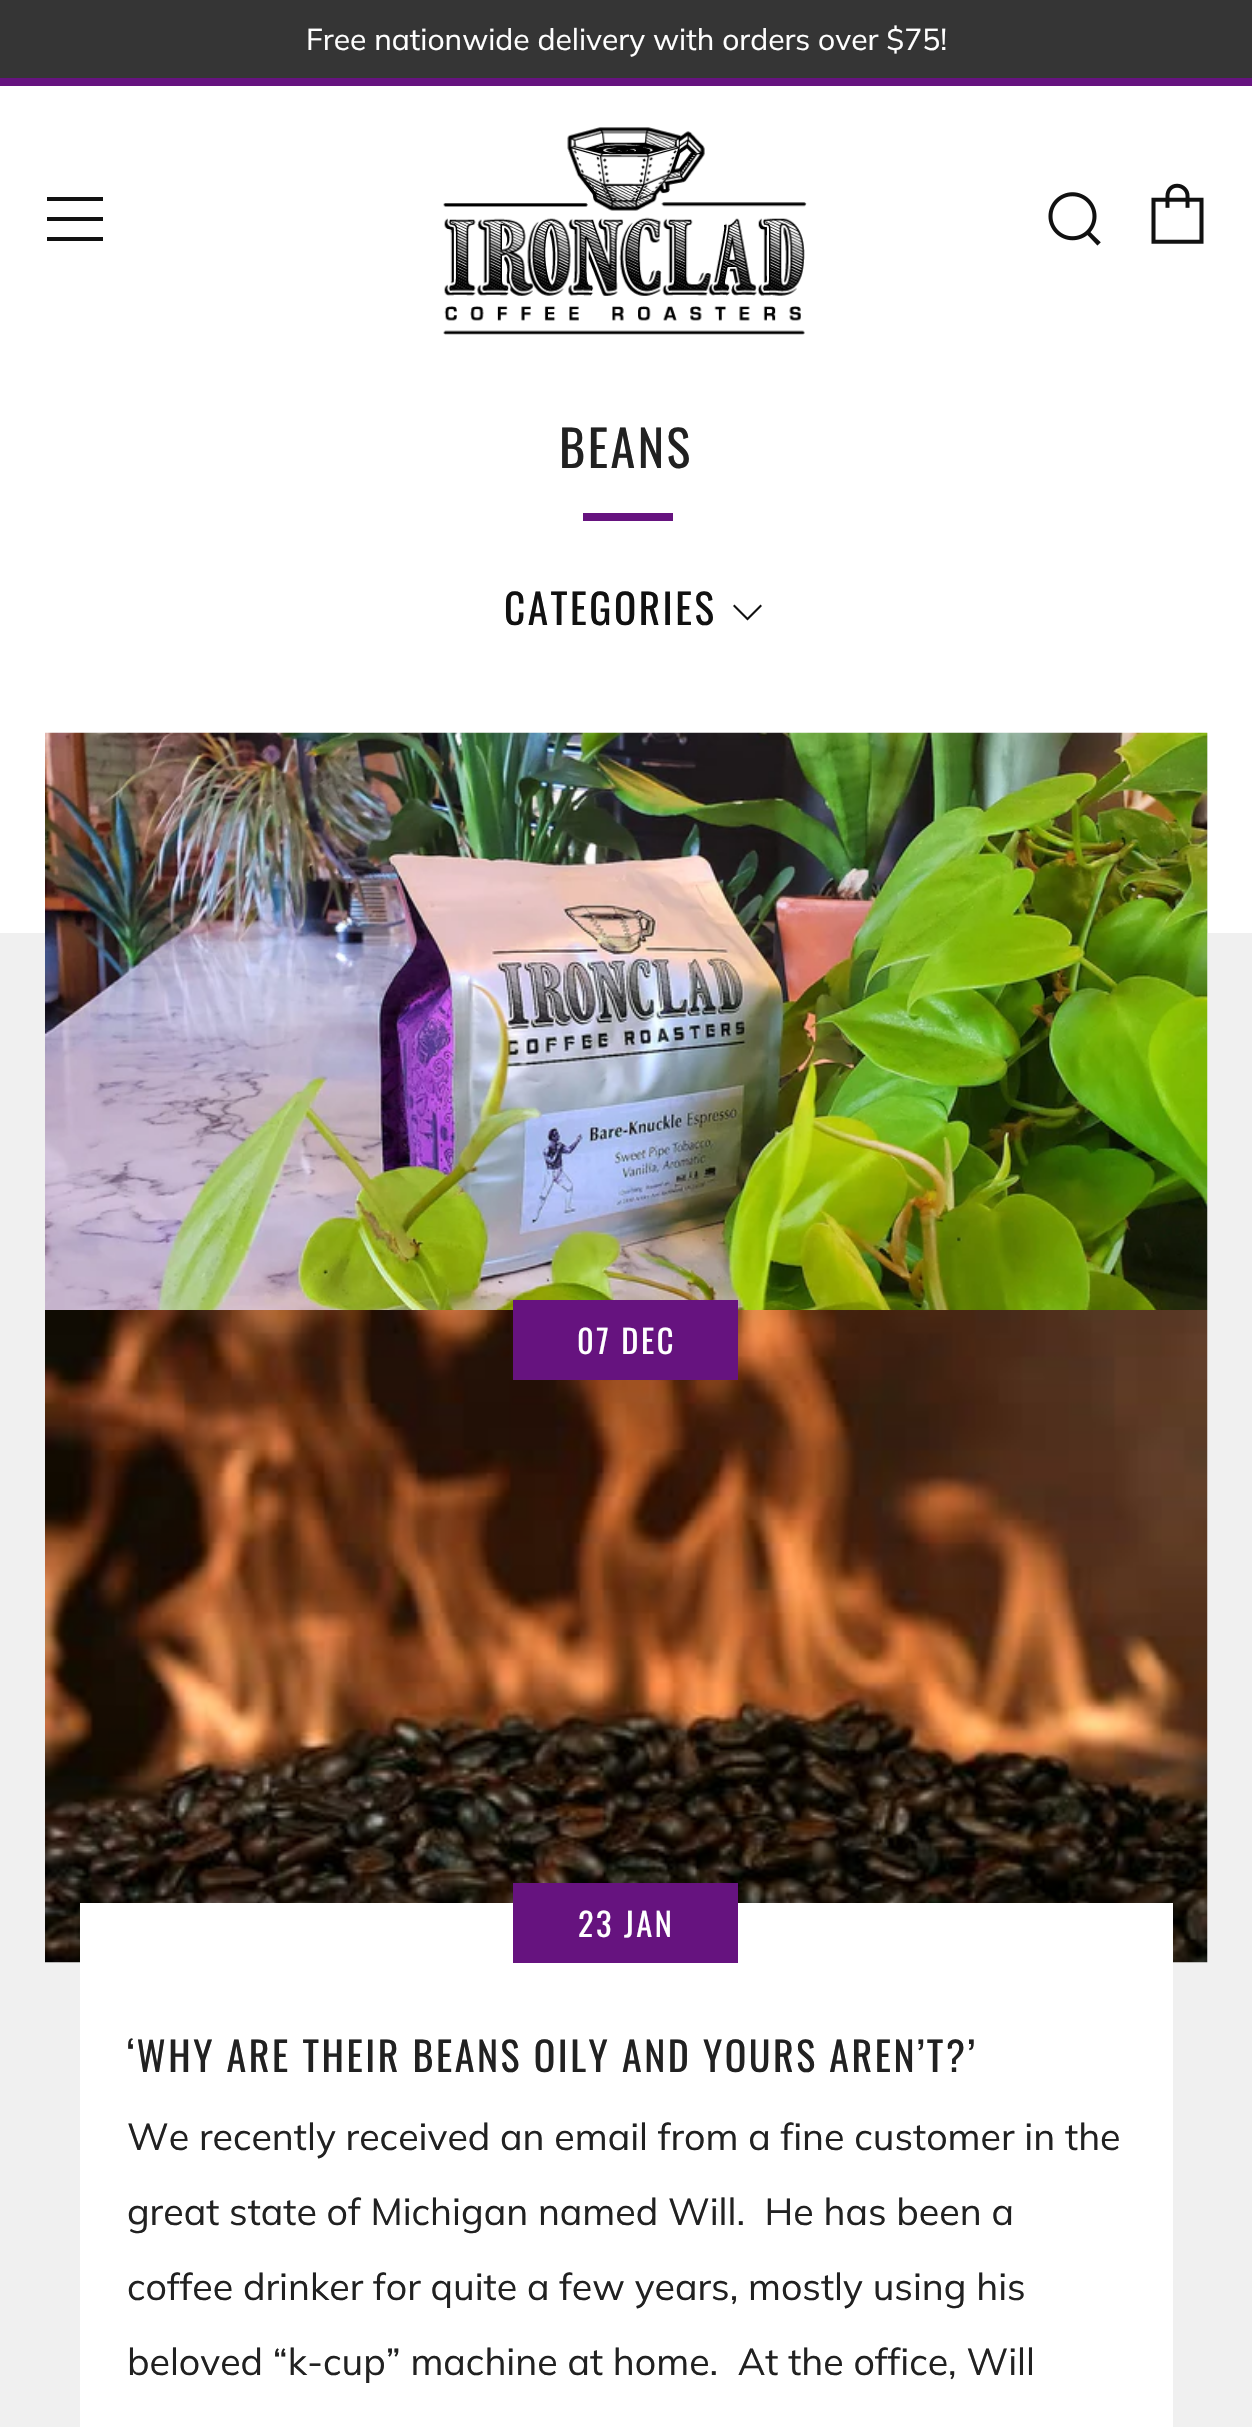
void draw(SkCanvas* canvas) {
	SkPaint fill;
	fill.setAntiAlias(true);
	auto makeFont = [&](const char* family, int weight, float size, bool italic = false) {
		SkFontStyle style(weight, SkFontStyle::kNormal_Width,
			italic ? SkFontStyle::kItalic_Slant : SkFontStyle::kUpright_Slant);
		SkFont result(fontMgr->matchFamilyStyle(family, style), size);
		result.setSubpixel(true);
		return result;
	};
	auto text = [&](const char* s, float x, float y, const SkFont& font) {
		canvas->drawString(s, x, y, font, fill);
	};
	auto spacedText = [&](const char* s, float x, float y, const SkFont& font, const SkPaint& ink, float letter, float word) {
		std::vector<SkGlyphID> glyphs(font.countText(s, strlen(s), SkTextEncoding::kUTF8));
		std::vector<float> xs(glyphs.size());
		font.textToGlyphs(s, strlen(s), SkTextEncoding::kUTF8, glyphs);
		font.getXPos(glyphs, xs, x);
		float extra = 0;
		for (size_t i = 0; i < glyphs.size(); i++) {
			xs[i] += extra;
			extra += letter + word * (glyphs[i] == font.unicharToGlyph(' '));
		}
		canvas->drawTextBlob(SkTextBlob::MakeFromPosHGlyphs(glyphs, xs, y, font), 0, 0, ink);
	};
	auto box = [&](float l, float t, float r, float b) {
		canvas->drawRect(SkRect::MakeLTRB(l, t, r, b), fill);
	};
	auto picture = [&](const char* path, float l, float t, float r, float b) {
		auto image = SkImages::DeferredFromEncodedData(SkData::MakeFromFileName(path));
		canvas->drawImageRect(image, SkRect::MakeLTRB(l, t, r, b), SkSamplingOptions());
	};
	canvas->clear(0xFFFFFFFF);
	fill.setColor(0xFF353535);
	box(0, 0, 1252, 78);
	fill.setColor(0xFF66137F);
	box(0, 78, 1252, 86);
	fill.setColor(0xFF111111);
	canvas->drawPath(SkPathBuilder().moveTo(47, 201).lineTo(103, 201).lineTo(103, 197).lineTo(47, 197).close().moveTo(47, 241).lineTo(103, 241).lineTo(103, 237).lineTo(47, 237).close().moveTo(47, 221).lineTo(103, 221).lineTo(103, 217).lineTo(47, 217).close().detach(), fill);
	picture("image0.png", 443, 127, 807, 335);
	picture("image1.png", 1048, 192, 1101, 246);
	picture("image2.png", 1151, 183, 1204, 244);
	fill.setColor(0xFF66137F);
	box(583, 513, 673, 521);
	fill.setColor(0xFF111111);
	canvas->drawPath(SkPathBuilder().moveTo(734.5f, 604.5f).lineTo(733, 606).lineTo(747.5f, 620.5f).lineTo(762, 606).lineTo(760.5f, 604.5f).lineTo(747.5f, 617.5f).close().detach(), fill);
	fill.setColor(0xFFF0F0F0);
	box(0, 933, 1252, 2427);
	box(1207, 733, 1208, 933);
	picture("image3.png", 45, 732, 1208, 1310);
	picture("image4.png", 45, 1310, 1208, 1963);
	fill.setColor(0xFF66137F);
	box(513, 1300, 738, 1380);
	fill.setColor(0xFFFFFFFF);
	box(80, 1903, 1173, 2427);
	fill.setColor(0xFF66137F);
	box(513, 1883, 738, 1963);
	auto font1 = makeFont("Muli", 400, 30);
	fill.setColor(0xFFFFFFFF);
	text("Free nationwide delivery with orders over $75!", 306, 50, font1);
	auto font2 = makeFont("Oswald", 400, 50);
	fill.setColor(0xFF212121);
	spacedText("BEANS", 559, 468, font2, fill, 2.5f, 0);
	auto font3 = makeFont("Oswald", 400, 41.25f);
	fill.setColor(0xFF111111);
	spacedText("CATEGORIES", 504, 625, font3, fill, 2.5f, 0);
	auto font4 = makeFont("Oswald", 400, 32.5f);
	fill.setColor(0xFFFFFFFF);
	spacedText("07 DEC", 577, 1354, font4, fill, 2.5f, 0);
	spacedText("23 JAN", 578, 1937, font4, fill, 2.5f, 0);
	auto font5 = makeFont("Oswald", 400, 40);
	fill.setColor(0xFF212121);
	spacedText("‘WHY ARE THEIR BEANS OILY AND YOURS AREN’T?’", 127, 2072, font5, fill, 2.5f, 0);
	auto font6 = makeFont("Muli", 400, 37.5f);
	text("We recently received an email from a fine customer in the", 127, 2150, font6);
	text("great state of Michigan named Will.  He has been a", 127, 2225, font6);
	text("coffee drinker for quite a few years, mostly using his", 127, 2300, font6);
	text("beloved “k-cup” machine at home.  At the office, Will", 127, 2375, font6);
}
